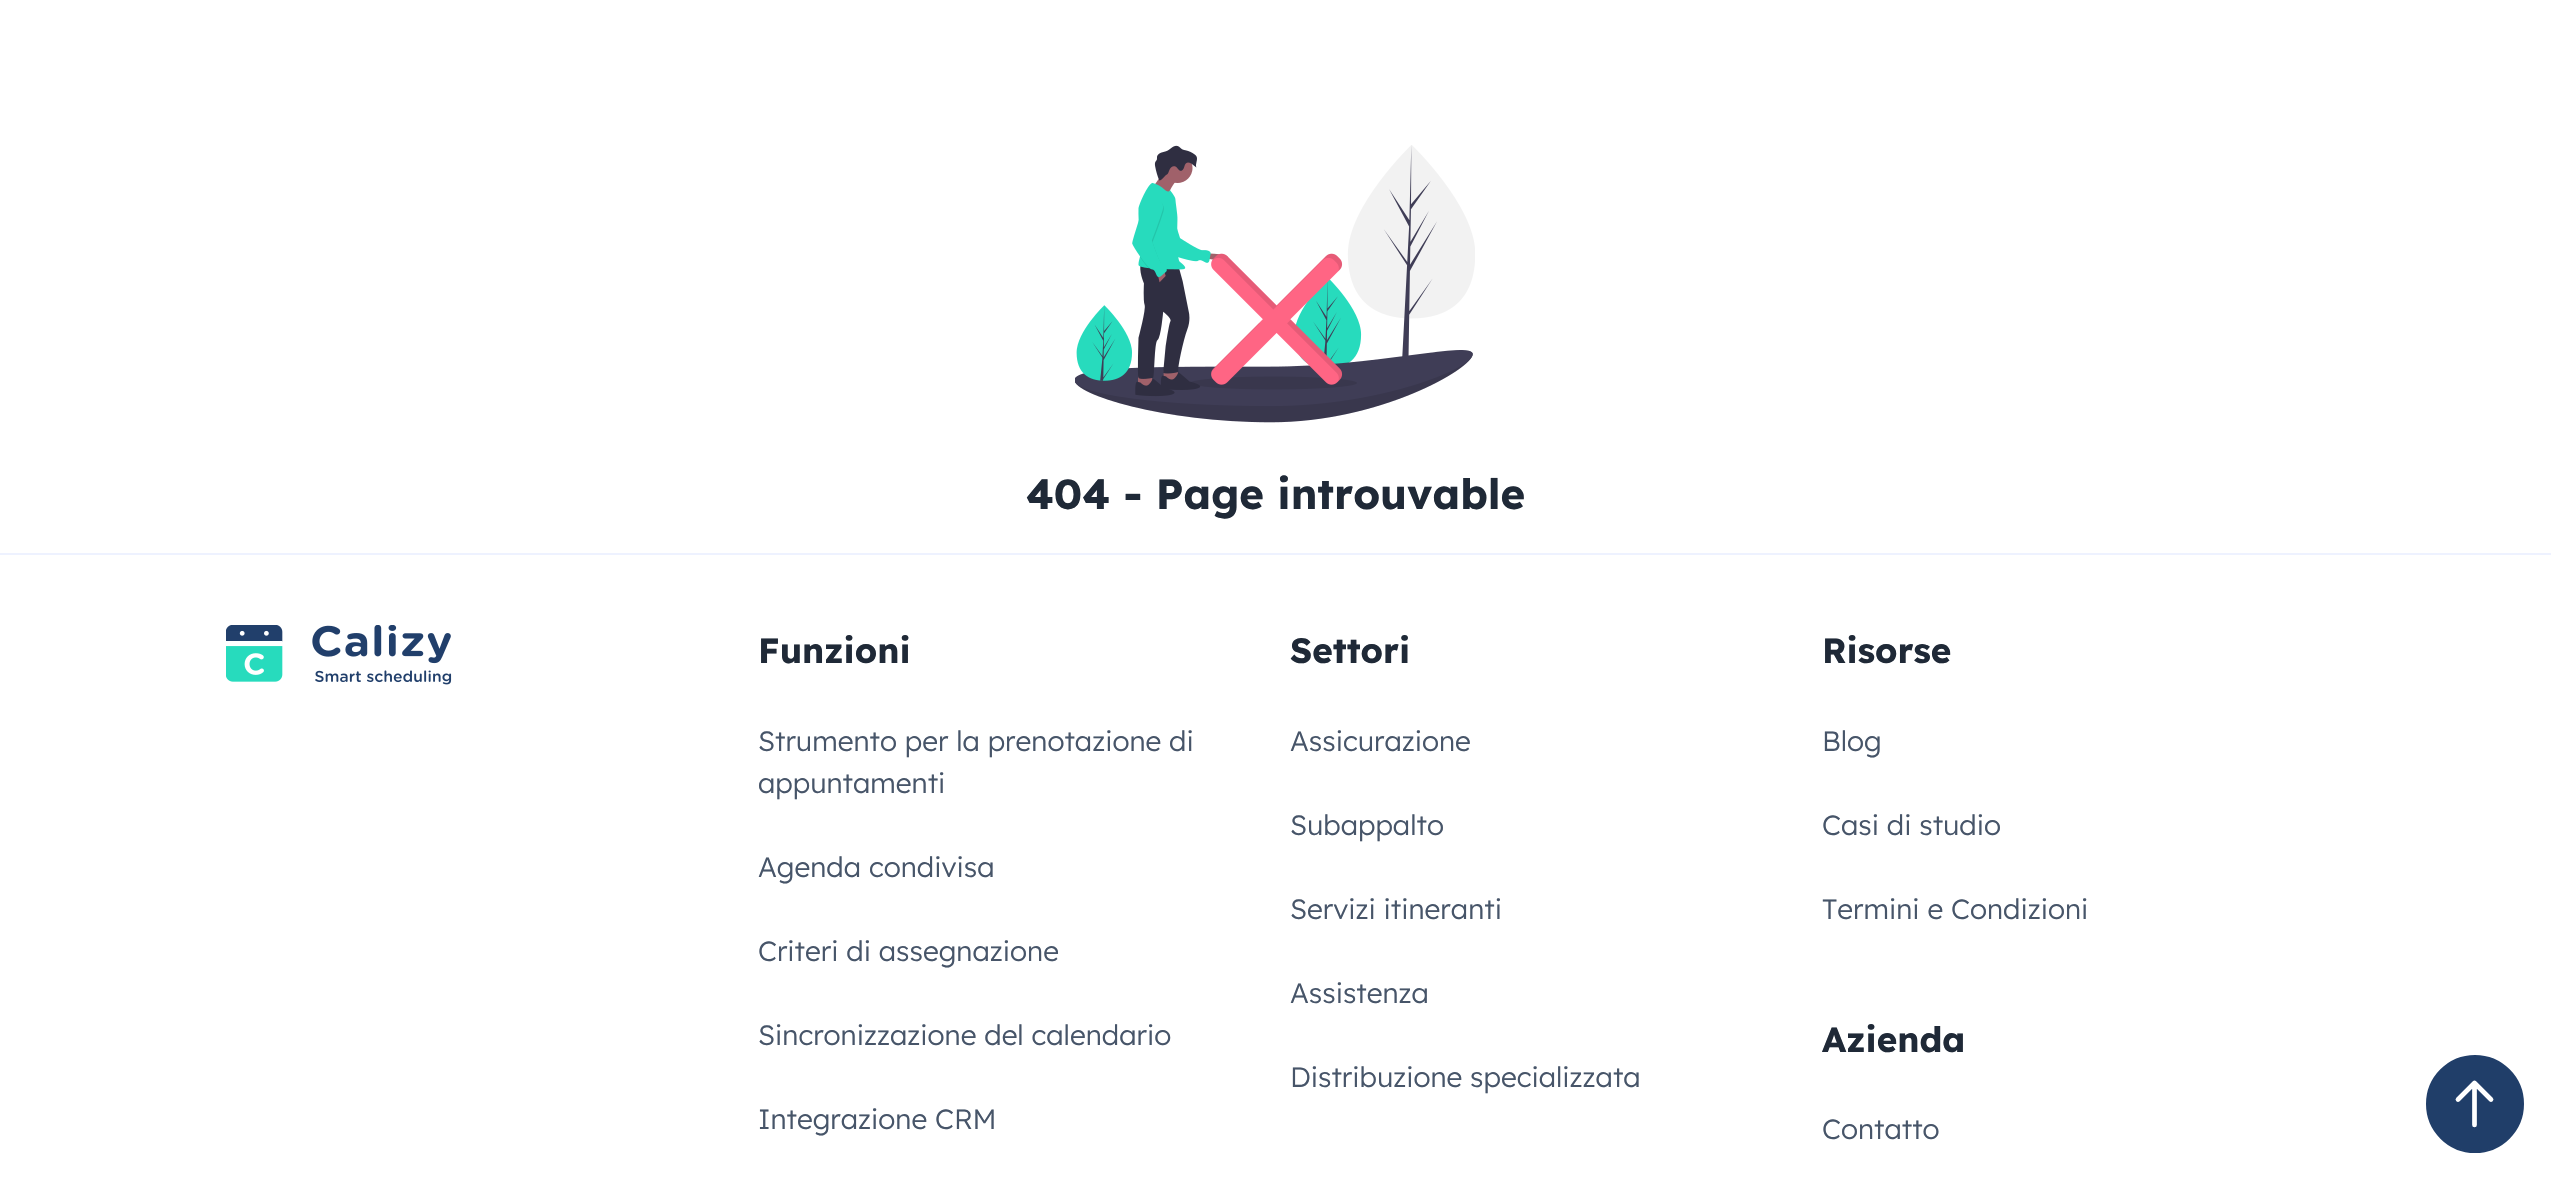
void draw(SkCanvas* canvas) {
	SkPaint fill;
	fill.setAntiAlias(true);
	auto makeFont = [&](const char* family, int weight, float size, bool italic = false) {
		SkFontStyle style(weight, SkFontStyle::kNormal_Width,
			italic ? SkFontStyle::kItalic_Slant : SkFontStyle::kUpright_Slant);
		SkFont result(fontMgr->matchFamilyStyle(family, style), size);
		result.setSubpixel(true);
		return result;
	};
	auto text = [&](const char* s, float x, float y, const SkFont& font) {
		canvas->drawString(s, x, y, font, fill);
	};
	auto box = [&](float l, float t, float r, float b) {
		canvas->drawRect(SkRect::MakeLTRB(l, t, r, b), fill);
	};
	auto picture = [&](const char* path, float l, float t, float r, float b) {
		auto image = SkImages::DeferredFromEncodedData(SkData::MakeFromFileName(path));
		canvas->drawImageRect(image, SkRect::MakeLTRB(l, t, r, b), SkSamplingOptions());
	};
	canvas->clear(0xFFFFFFFF);
	picture("image0.png", 1075, 145, 1475, 423);
	fill.setColor(0xFFEEF2FF);
	box(0, 553, 2551, 555);
	picture("image1.png", 226, 625, 452, 685);
	fill.setColor(0xFF203E69);
	canvas->drawCircle(2475, 1104, 48, fill);
	fill.setStyle(SkPaint::kStroke_Style);
	fill.setStrokeWidth(2);
	canvas->drawCircle(2475, 1104, 48, fill);
	fill.setStrokeWidth(4.7f);
	fill.setStrokeCap(SkPaint::kRound_Cap);
	fill.setStrokeJoin(SkPaint::kRound_Join);
	fill.setColor(0xFFFFFFFF);
	canvas->drawPath(SkPathBuilder().moveTo(2458, 1099.5f).lineTo(2474.5f, 1083).moveTo(2474.5f, 1083).lineTo(2491, 1099.5f).moveTo(2474.5f, 1083).lineTo(2474.5f, 1125).detach(), fill);
	auto font1 = makeFont("Lexend", 700, 42);
	fill.setStyle(SkPaint::kFill_Style);
	fill.setColor(0xFF1F2937);
	text("404 - Page introuvable", 1026, 509, font1);
	auto font2 = makeFont("Lexend", 700, 35);
	text("Funzioni", 758, 663, font2);
	auto font3 = makeFont("Lexend", 300, 28);
	fill.setColor(0xFF475569);
	text("Strumento per la prenotazione di", 758, 751, font3);
	text("appuntamenti", 758, 793, font3);
	text("Agenda condivisa", 758, 877, font3);
	text("Criteri di assegnazione", 758, 961, font3);
	text("Sincronizzazione del calendario", 758, 1045, font3);
	text("Integrazione CRM", 758, 1129, font3);
	fill.setColor(0xFF1F2937);
	text("Settori", 1290, 663, font2);
	fill.setColor(0xFF475569);
	text("Assicurazione", 1290, 751, font3);
	text("Subappalto", 1290, 835, font3);
	text("Servizi itineranti", 1290, 919, font3);
	text("Assistenza", 1290, 1003, font3);
	text("Distribuzione specializzata", 1290, 1087, font3);
	fill.setColor(0xFF1F2937);
	text("Risorse", 1822, 663, font2);
	fill.setColor(0xFF475569);
	text("Blog", 1822, 751, font3);
	text("Casi di studio", 1822, 835, font3);
	text("Termini e Condizioni", 1822, 919, font3);
	fill.setColor(0xFF1F2937);
	text("Azienda", 1822, 1052, font2);
	fill.setColor(0xFF475569);
	text("Contatto", 1822, 1139, font3);
}
